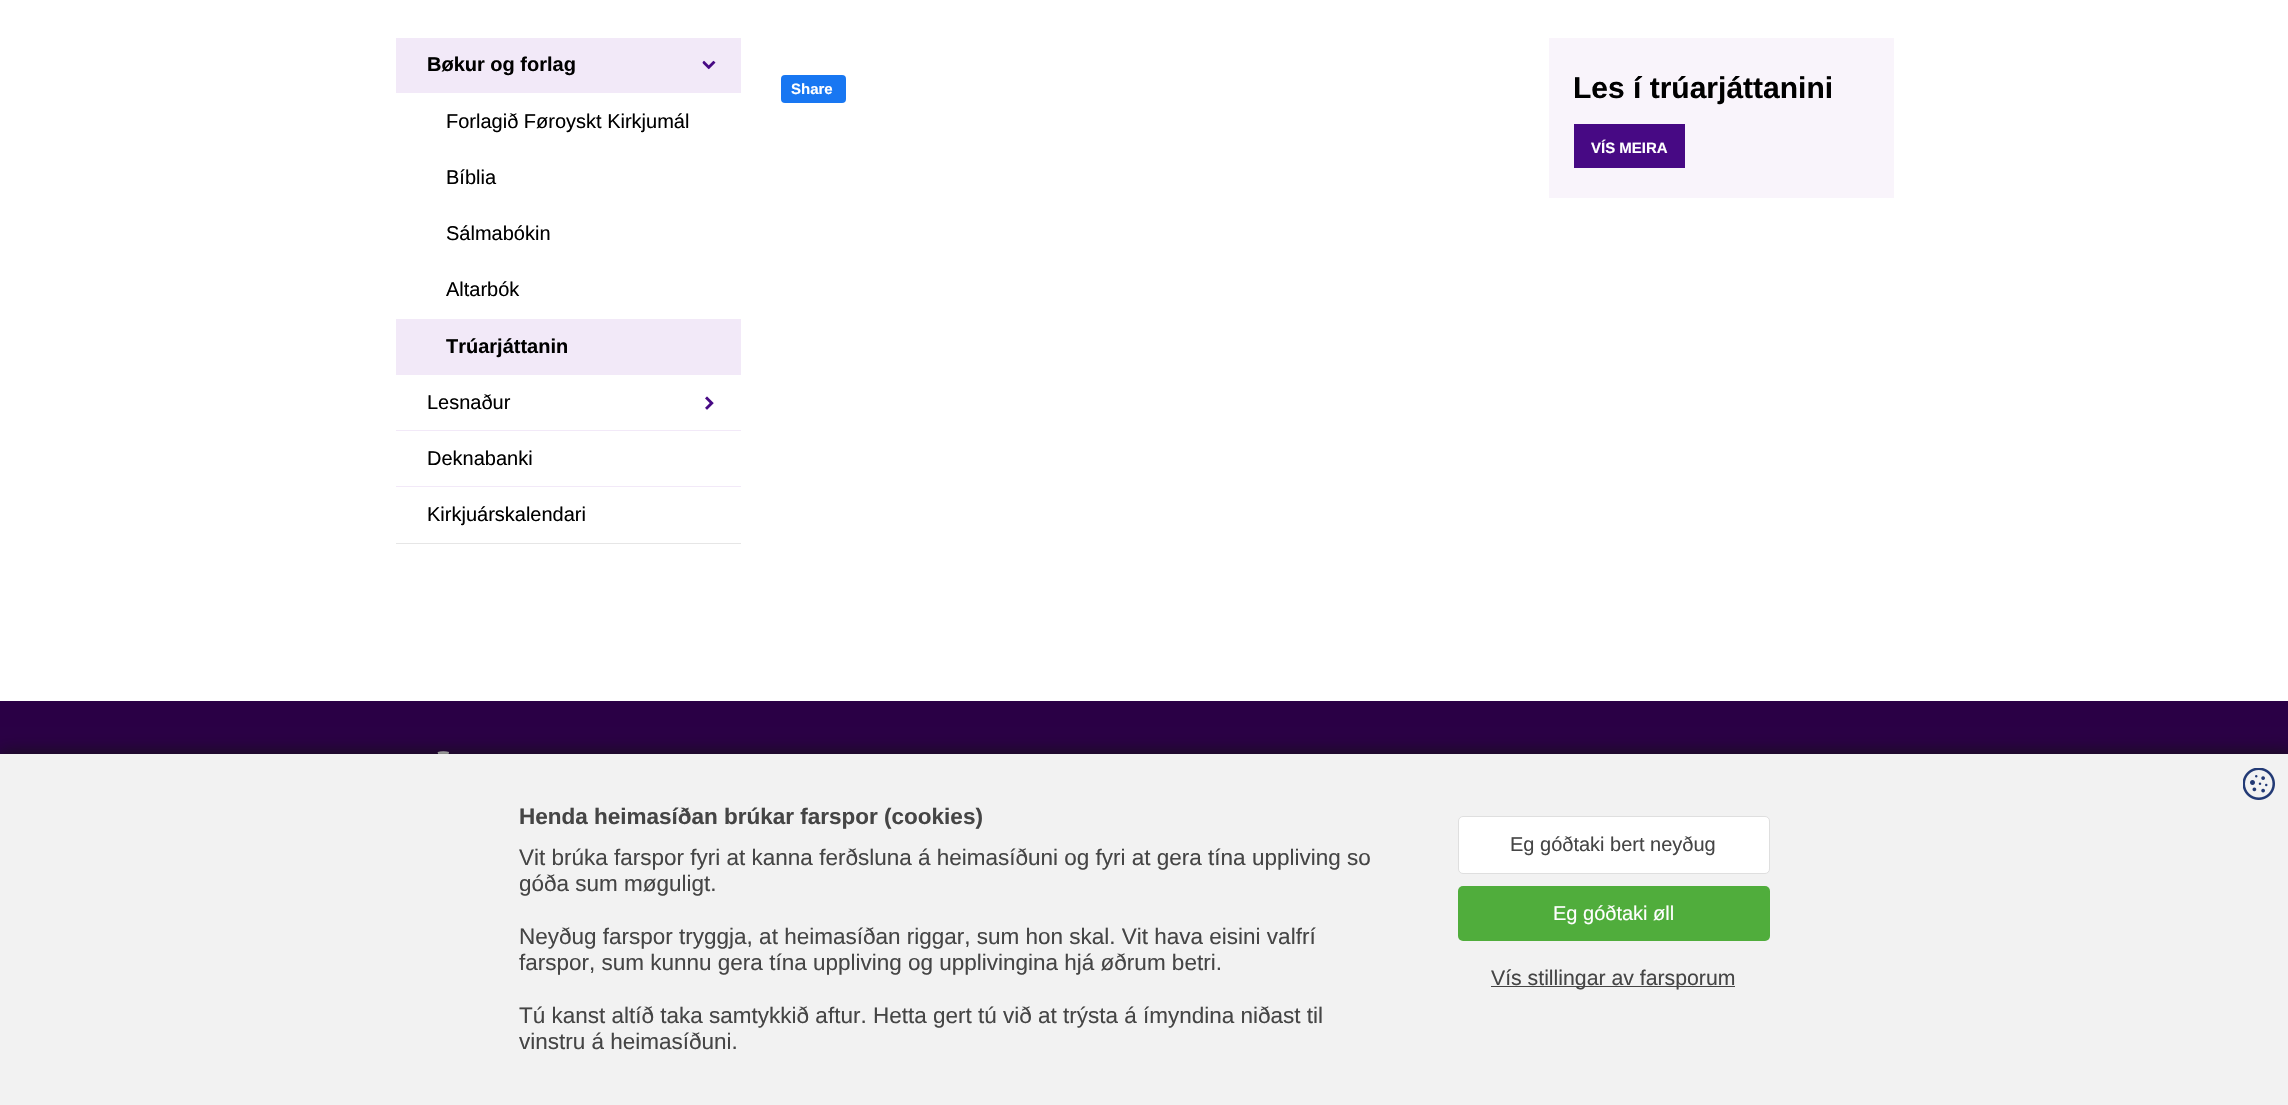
void draw(SkCanvas* canvas) {
	SkPaint fill;
	fill.setAntiAlias(true);
	auto makeFont = [&](const char* family, int weight, float size, bool italic = false) {
		SkFontStyle style(weight, SkFontStyle::kNormal_Width,
			italic ? SkFontStyle::kItalic_Slant : SkFontStyle::kUpright_Slant);
		SkFont result(fontMgr->matchFamilyStyle(family, style), size);
		result.setSubpixel(true);
		return result;
	};
	auto text = [&](const char* s, float x, float y, const SkFont& font) {
		canvas->drawString(s, x, y, font, fill);
	};
	auto box = [&](float l, float t, float r, float b) {
		canvas->drawRect(SkRect::MakeLTRB(l, t, r, b), fill);
	};
	auto roundBox = [&](float l, float t, float r, float b, float radius) {
		canvas->drawRoundRect(SkRect::MakeLTRB(l, t, r, b), radius, radius, fill);
	};
	auto picture = [&](const char* path, float l, float t, float r, float b) {
		auto image = SkImages::DeferredFromEncodedData(SkData::MakeFromFileName(path));
		canvas->drawImageRect(image, SkRect::MakeLTRB(l, t, r, b), SkSamplingOptions());
	};
	canvas->clear(0xFF2A0045);
	fill.setColor(0xFFFFFFFF);
	box(0, 0, 2288, 701);
	fill.setColor(0xFFF2E9F8);
	box(396, 38, 741, 93);
	picture("image0.png", 702, 60, 716, 70);
	box(396, 319, 741, 375);
	picture("image1.png", 705, 396, 714, 410);
	box(396, 430, 741, 431);
	box(396, 486, 741, 487);
	fill.setColor(0xFFE6E6E6);
	box(396, 543, 741, 544);
	fill.setColor(0xFF1877F2);
	roundBox(781, 75, 846, 103, 4);
	fill.setColor(0xFFF9F4FB);
	box(1549, 38, 1894, 198);
	fill.setColor(0xFF470984);
	box(1574, 124, 1685, 168);
	picture("image2.png", 437, 751, 449, 754);
	fill.setColor(0xFF121212);
	fill.setMaskFilter(SkMaskFilter::MakeBlur(kNormal_SkBlurStyle, 9));
	canvas->drawRect(SkRect::MakeLTRB(0, 754, 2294, 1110), fill);
	fill.setMaskFilter(nullptr);
	fill.setColor(0xFFF2F2F2);
	box(0, 754, 2288, 1105);
	picture("image3.png", 2243, 768, 2275, 800);
	fill.setColor(0xFFFFFFFF);
	canvas->drawRoundRect(SkRect::MakeLTRB(1458.5f, 816.5f, 1769.5f, 873.5f), 4.5f, 4.5f, fill);
	fill.setStyle(SkPaint::kStroke_Style);
	fill.setStrokeWidth(1);
	fill.setColor(0xFFDFDFDF);
	canvas->drawRoundRect(SkRect::MakeLTRB(1458.5f, 816.5f, 1769.5f, 873.5f), 4.5f, 4.5f, fill);
	fill.setStyle(SkPaint::kFill_Style);
	fill.setColor(0xFF50AD3C);
	roundBox(1458, 886, 1770, 941, 5);
	fill.setColor(0xFF454545);
	box(1491, 986, 1735, 987);
	auto font1 = makeFont("Liberation Sans", 700, 20);
	fill.setColor(0xFF000000);
	text("Bøkur og forlag", 427, 71, font1);
	auto font2 = makeFont("Liberation Sans", 400, 20);
	text("Forlagið Føroyskt Kirkjumál", 446, 128, font2);
	text("Bíblia", 446, 184, font2);
	text("Sálmabókin", 446, 240, font2);
	text("Altarbók", 446, 296, font2);
	text("Trúarjáttanin", 446, 353, font1);
	text("Lesnaður", 427, 409, font2);
	text("Deknabanki", 427, 465, font2);
	text("Kirkjuárskalendari", 427, 521, font2);
	auto font3 = makeFont("Liberation Sans", 700, 15);
	fill.setColor(0xFFFFFFFF);
	text("Share", 791, 94, font3);
	auto font4 = makeFont("Liberation Sans", 700, 30);
	fill.setColor(0xFF000000);
	text("Les í trúarjáttanini", 1573, 98, font4);
	fill.setColor(0xFFFFFFFF);
	text("VÍS MEIRA", 1591, 153, font3);
	auto font5 = makeFont("Liberation Sans", 700, 22.5f);
	fill.setColor(0xFF454545);
	text("Henda heimasíðan brúkar farspor (cookies)", 519, 824, font5);
	auto font6 = makeFont("Liberation Sans", 400, 22.5f);
	text("Vit brúka farspor fyri at kanna ferðsluna á heimasíðuni og fyri at gera tína uppliving so", 519, 865, font6);
	text("góða sum møguligt.", 519, 891, font6);
	text("Neyðug farspor tryggja, at heimasíðan riggar, sum hon skal. Vit hava eisini valfrí", 519, 944, font6);
	text("farspor, sum kunnu gera tína uppliving og upplivingina hjá øðrum betri.", 519, 970, font6);
	text("Tú kanst altíð taka samtykkið aftur. Hetta gert tú við at trýsta á ímyndina niðast til", 519, 1023, font6);
	text("vinstru á heimasíðuni.", 519, 1049, font6);
	text("Eg góðtaki bert neyðug", 1510, 851, font2);
	fill.setColor(0xFFFFFFFF);
	text("Eg góðtaki øll", 1553, 920, font2);
	auto font7 = makeFont("Liberation Sans", 400, 21.25f);
	fill.setColor(0xFF454545);
	text("Vís stillingar av farsporum", 1491, 985, font7);
}
